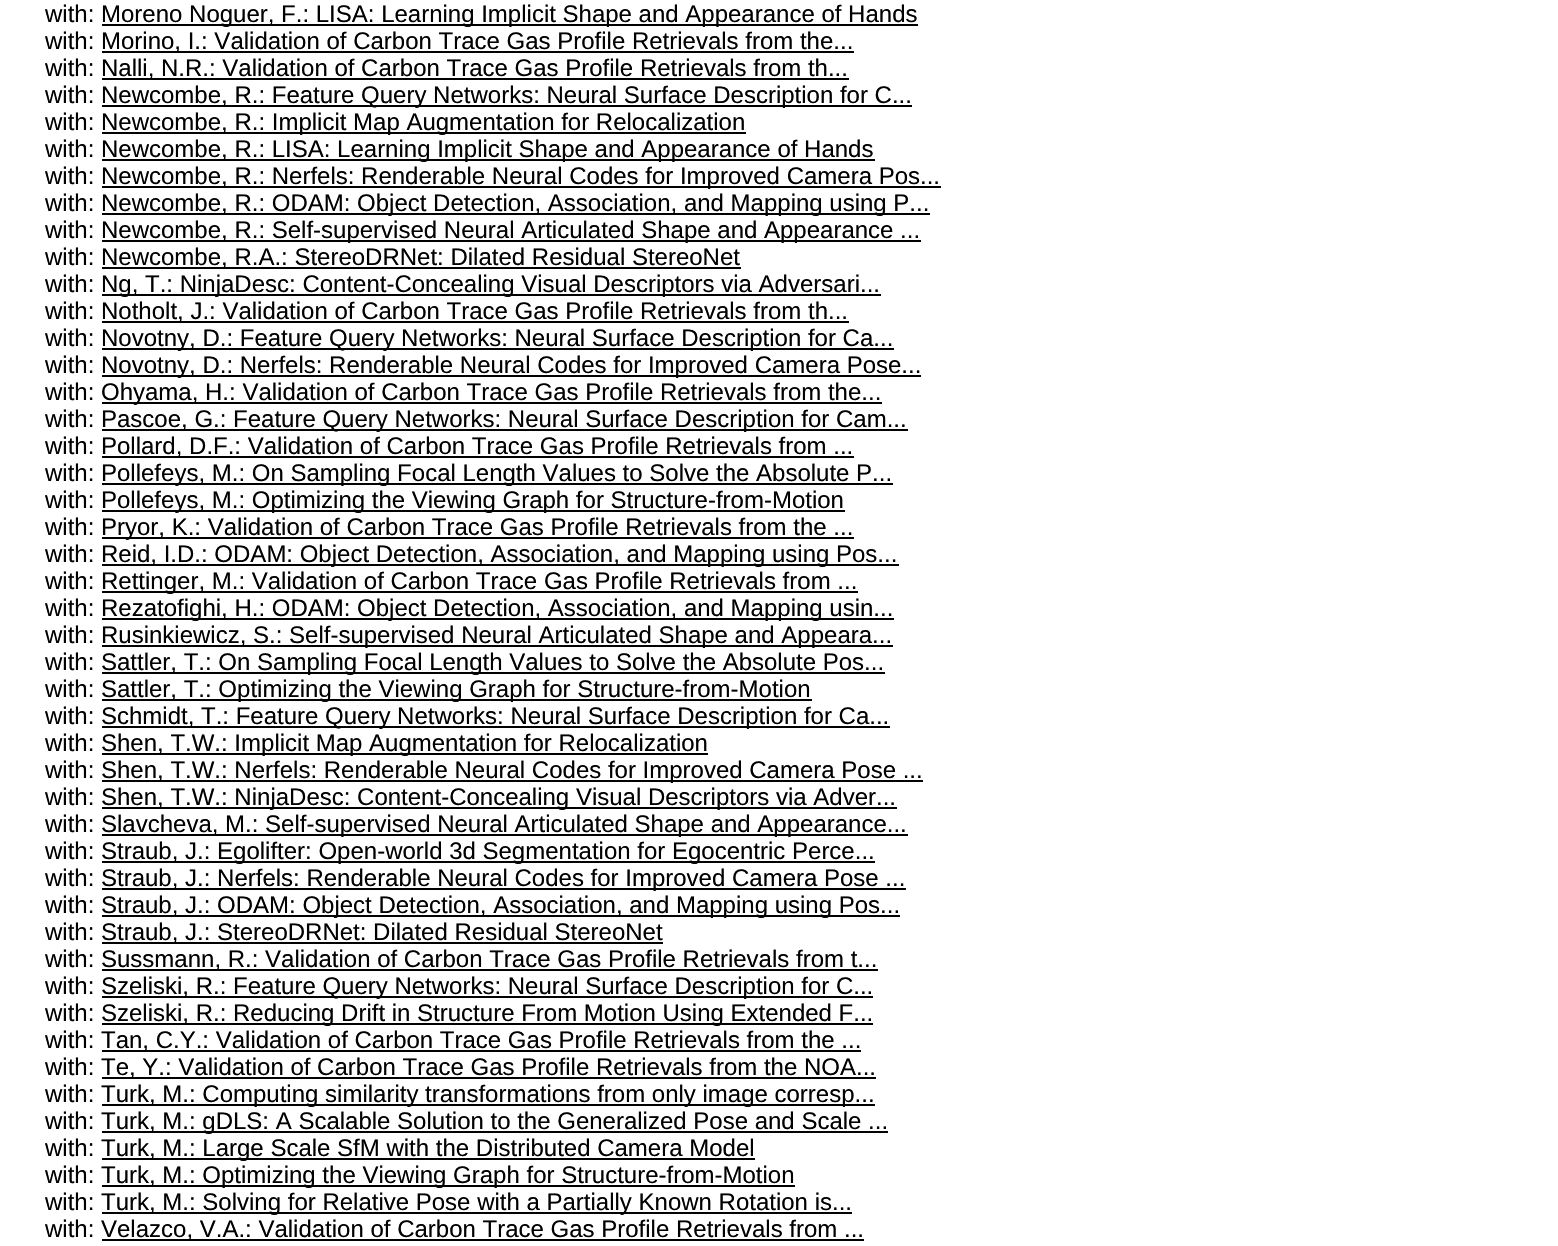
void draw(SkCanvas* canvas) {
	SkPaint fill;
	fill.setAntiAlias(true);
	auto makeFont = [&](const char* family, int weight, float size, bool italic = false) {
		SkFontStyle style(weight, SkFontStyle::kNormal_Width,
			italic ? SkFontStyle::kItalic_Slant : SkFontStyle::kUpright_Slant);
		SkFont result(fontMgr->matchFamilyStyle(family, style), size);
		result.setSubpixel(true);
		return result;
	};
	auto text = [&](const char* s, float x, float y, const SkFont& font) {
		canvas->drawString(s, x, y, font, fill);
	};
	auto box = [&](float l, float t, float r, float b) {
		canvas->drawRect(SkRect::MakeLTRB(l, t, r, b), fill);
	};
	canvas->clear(0xFFFFFFFF);
	fill.setColor(0xFF000000);
	box(102, 24, 918, 26);
	box(102, 51, 854, 53);
	box(102, 78, 849, 80);
	box(102, 105, 912, 107);
	box(102, 132, 746, 134);
	box(102, 159, 875, 161);
	box(102, 186, 941, 188);
	box(102, 213, 930, 215);
	box(102, 240, 921, 242);
	box(102, 267, 741, 269);
	box(102, 294, 881, 296);
	box(102, 321, 849, 323);
	box(102, 348, 894, 350);
	box(102, 375, 921, 377);
	box(102, 402, 882, 404);
	box(102, 429, 908, 431);
	box(102, 456, 854, 458);
	box(102, 483, 893, 485);
	box(102, 510, 845, 512);
	box(102, 537, 854, 539);
	box(102, 564, 899, 566);
	box(102, 591, 858, 593);
	box(102, 618, 894, 620);
	box(102, 645, 893, 647);
	box(102, 672, 885, 674);
	box(102, 699, 812, 701);
	box(102, 726, 890, 728);
	box(102, 753, 708, 755);
	box(102, 780, 923, 782);
	box(102, 807, 897, 809);
	box(102, 834, 908, 836);
	box(102, 861, 875, 863);
	box(102, 888, 906, 890);
	box(102, 915, 900, 917);
	box(102, 942, 663, 944);
	box(102, 969, 878, 971);
	box(102, 996, 873, 998);
	box(102, 1023, 873, 1025);
	box(102, 1050, 861, 1052);
	box(102, 1077, 876, 1079);
	box(102, 1104, 875, 1106);
	box(102, 1131, 888, 1133);
	box(102, 1158, 755, 1160);
	box(102, 1185, 795, 1187);
	box(102, 1212, 852, 1214);
	box(102, 1239, 864, 1241);
	auto font1 = makeFont("Liberation Sans", 400, 24);
	text("with:", 45, 22, font1);
	text("Moreno Noguer, F.: LISA: Learning Implicit Shape and Appearance of Hands", 101, 22, font1);
	text("with:", 45, 49, font1);
	text("Morino, I.: Validation of Carbon Trace Gas Profile Retrievals from the...", 101, 49, font1);
	text("with:", 45, 76, font1);
	text("Nalli, N.R.: Validation of Carbon Trace Gas Profile Retrievals from th...", 101, 76, font1);
	text("with:", 45, 103, font1);
	text("Newcombe, R.: Feature Query Networks: Neural Surface Description for C...", 101, 103, font1);
	text("with:", 45, 130, font1);
	text("Newcombe, R.: Implicit Map Augmentation for Relocalization", 101, 130, font1);
	text("with:", 45, 157, font1);
	text("Newcombe, R.: LISA: Learning Implicit Shape and Appearance of Hands", 101, 157, font1);
	text("with:", 45, 184, font1);
	text("Newcombe, R.: Nerfels: Renderable Neural Codes for Improved Camera Pos...", 101, 184, font1);
	text("with:", 45, 211, font1);
	text("Newcombe, R.: ODAM: Object Detection, Association, and Mapping using P...", 101, 211, font1);
	text("with:", 45, 238, font1);
	text("Newcombe, R.: Self-supervised Neural Articulated Shape and Appearance ...", 101, 238, font1);
	text("with:", 45, 265, font1);
	text("Newcombe, R.A.: StereoDRNet: Dilated Residual StereoNet", 101, 265, font1);
	text("with:", 45, 292, font1);
	text("Ng, T.: NinjaDesc: Content-Concealing Visual Descriptors via Adversari...", 101, 292, font1);
	text("with:", 45, 319, font1);
	text("Notholt, J.: Validation of Carbon Trace Gas Profile Retrievals from th...", 101, 319, font1);
	text("with:", 45, 346, font1);
	text("Novotny, D.: Feature Query Networks: Neural Surface Description for Ca...", 101, 346, font1);
	text("with:", 45, 373, font1);
	text("Novotny, D.: Nerfels: Renderable Neural Codes for Improved Camera Pose...", 101, 373, font1);
	text("with:", 45, 400, font1);
	text("Ohyama, H.: Validation of Carbon Trace Gas Profile Retrievals from the...", 101, 400, font1);
	text("with:", 45, 427, font1);
	text("Pascoe, G.: Feature Query Networks: Neural Surface Description for Cam...", 101, 427, font1);
	text("with:", 45, 454, font1);
	text("Pollard, D.F.: Validation of Carbon Trace Gas Profile Retrievals from ...", 101, 454, font1);
	text("with:", 45, 481, font1);
	text("Pollefeys, M.: On Sampling Focal Length Values to Solve the Absolute P...", 101, 481, font1);
	text("with:", 45, 508, font1);
	text("Pollefeys, M.: Optimizing the Viewing Graph for Structure-from-Motion", 101, 508, font1);
	text("with:", 45, 535, font1);
	text("Pryor, K.: Validation of Carbon Trace Gas Profile Retrievals from the ...", 101, 535, font1);
	text("with:", 45, 562, font1);
	text("Reid, I.D.: ODAM: Object Detection, Association, and Mapping using Pos...", 101, 562, font1);
	text("with:", 45, 589, font1);
	text("Rettinger, M.: Validation of Carbon Trace Gas Profile Retrievals from ...", 101, 589, font1);
	text("with:", 45, 616, font1);
	text("Rezatofighi, H.: ODAM: Object Detection, Association, and Mapping usin...", 101, 616, font1);
	text("with:", 45, 643, font1);
	text("Rusinkiewicz, S.: Self-supervised Neural Articulated Shape and Appeara...", 101, 643, font1);
	text("with:", 45, 670, font1);
	text("Sattler, T.: On Sampling Focal Length Values to Solve the Absolute Pos...", 101, 670, font1);
	text("with:", 45, 697, font1);
	text("Sattler, T.: Optimizing the Viewing Graph for Structure-from-Motion", 101, 697, font1);
	text("with:", 45, 724, font1);
	text("Schmidt, T.: Feature Query Networks: Neural Surface Description for Ca...", 101, 724, font1);
	text("with:", 45, 751, font1);
	text("Shen, T.W.: Implicit Map Augmentation for Relocalization", 101, 751, font1);
	text("with:", 45, 778, font1);
	text("Shen, T.W.: Nerfels: Renderable Neural Codes for Improved Camera Pose ...", 101, 778, font1);
	text("with:", 45, 805, font1);
	text("Shen, T.W.: NinjaDesc: Content-Concealing Visual Descriptors via Adver...", 101, 805, font1);
	text("with:", 45, 832, font1);
	text("Slavcheva, M.: Self-supervised Neural Articulated Shape and Appearance...", 101, 832, font1);
	text("with:", 45, 859, font1);
	text("Straub, J.: Egolifter: Open-world 3d Segmentation for Egocentric Perce...", 101, 859, font1);
	text("with:", 45, 886, font1);
	text("Straub, J.: Nerfels: Renderable Neural Codes for Improved Camera Pose ...", 101, 886, font1);
	text("with:", 45, 913, font1);
	text("Straub, J.: ODAM: Object Detection, Association, and Mapping using Pos...", 101, 913, font1);
	text("with:", 45, 940, font1);
	text("Straub, J.: StereoDRNet: Dilated Residual StereoNet", 101, 940, font1);
	text("with:", 45, 967, font1);
	text("Sussmann, R.: Validation of Carbon Trace Gas Profile Retrievals from t...", 101, 967, font1);
	text("with:", 45, 994, font1);
	text("Szeliski, R.: Feature Query Networks: Neural Surface Description for C...", 101, 994, font1);
	text("with:", 45, 1021, font1);
	text("Szeliski, R.: Reducing Drift in Structure From Motion Using Extended F...", 101, 1021, font1);
	text("with:", 45, 1048, font1);
	text("Tan, C.Y.: Validation of Carbon Trace Gas Profile Retrievals from the ...", 101, 1048, font1);
	text("with:", 45, 1075, font1);
	text("Te, Y.: Validation of Carbon Trace Gas Profile Retrievals from the NOA...", 101, 1075, font1);
	text("with:", 45, 1102, font1);
	text("Turk, M.: Computing similarity transformations from only image corresp...", 101, 1102, font1);
	text("with:", 45, 1129, font1);
	text("Turk, M.: gDLS: A Scalable Solution to the Generalized Pose and Scale ...", 101, 1129, font1);
	text("with:", 45, 1156, font1);
	text("Turk, M.: Large Scale SfM with the Distributed Camera Model", 101, 1156, font1);
	text("with:", 45, 1183, font1);
	text("Turk, M.: Optimizing the Viewing Graph for Structure-from-Motion", 101, 1183, font1);
	text("with:", 45, 1210, font1);
	text("Turk, M.: Solving for Relative Pose with a Partially Known Rotation is...", 101, 1210, font1);
	text("with:", 45, 1237, font1);
	text("Velazco, V.A.: Validation of Carbon Trace Gas Profile Retrievals from ...", 101, 1237, font1);
}
